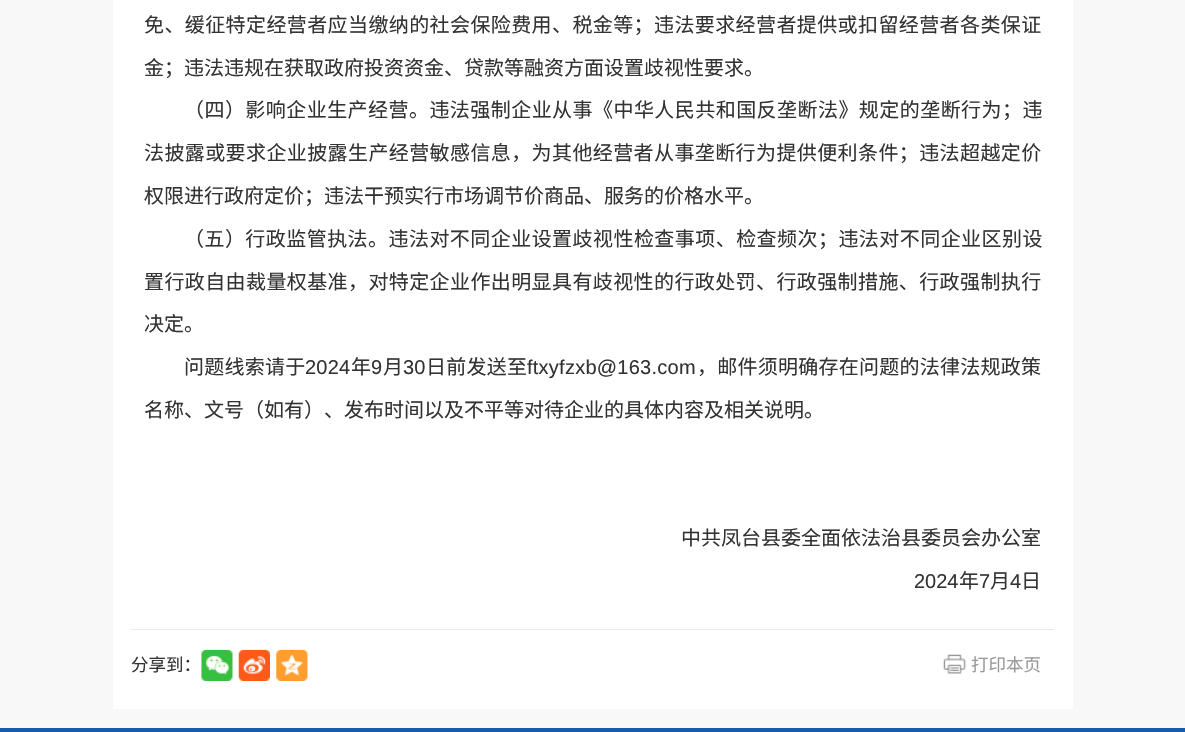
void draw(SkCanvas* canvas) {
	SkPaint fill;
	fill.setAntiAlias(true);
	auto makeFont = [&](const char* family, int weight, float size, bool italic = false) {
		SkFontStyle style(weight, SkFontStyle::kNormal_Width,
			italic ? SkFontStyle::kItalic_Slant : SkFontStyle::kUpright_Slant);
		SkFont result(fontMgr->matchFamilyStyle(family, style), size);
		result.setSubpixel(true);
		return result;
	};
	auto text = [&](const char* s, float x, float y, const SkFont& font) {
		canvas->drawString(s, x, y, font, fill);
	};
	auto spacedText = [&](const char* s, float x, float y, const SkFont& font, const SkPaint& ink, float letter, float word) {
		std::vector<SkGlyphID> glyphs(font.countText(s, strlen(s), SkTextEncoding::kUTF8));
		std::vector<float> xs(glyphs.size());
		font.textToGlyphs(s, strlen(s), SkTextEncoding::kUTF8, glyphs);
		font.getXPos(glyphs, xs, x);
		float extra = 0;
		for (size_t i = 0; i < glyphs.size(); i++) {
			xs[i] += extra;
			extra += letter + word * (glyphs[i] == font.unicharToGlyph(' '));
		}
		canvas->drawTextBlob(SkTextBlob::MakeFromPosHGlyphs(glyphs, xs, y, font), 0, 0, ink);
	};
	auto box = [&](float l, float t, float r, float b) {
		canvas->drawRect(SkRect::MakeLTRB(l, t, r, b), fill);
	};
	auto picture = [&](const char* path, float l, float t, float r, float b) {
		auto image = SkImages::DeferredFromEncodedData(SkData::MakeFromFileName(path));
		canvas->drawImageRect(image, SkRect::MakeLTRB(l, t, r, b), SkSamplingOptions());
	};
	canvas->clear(0xFFF8F8F8);
	fill.setColor(0xFFFFFFFF);
	box(113, 0, 1073, 709);
	fill.setColor(0xFFEAEAEA);
	box(131, 629, 1054, 630);
	picture("image0.png", 201, 649, 233, 681);
	picture("image1.png", 238, 649, 270, 681);
	picture("image2.png", 276, 649, 308, 681);
	picture("image3.png", 943, 654, 967, 674);
	fill.setColor(0xFF185AAE);
	box(0, 728, 1185, 732);
	auto font1 = makeFont("Noto Sans CJK SC", 400, 20);
	fill.setColor(0xFF333333);
	spacedText("免、缓征特定经营者应当缴纳的社会保险费用、税金等；违法要求经营者提供或扣留经营者各类保证", 144, 32, font1, fill, 0.4f, 0);
	text("金；违法违规在获取政府投资资金、贷款等融资方面设置歧视性要求。", 144, 75, font1);
	spacedText("（四）影响企业生产经营。违法强制企业从事《中华人民共和国反垄断法》规定的垄断行为；违", 184, 117, font1, fill, 0.45f, 0);
	spacedText("法披露或要求企业披露生产经营敏感信息，为其他经营者从事垄断行为提供便利条件；违法超越定价", 144, 160, font1, fill, 0.4f, 0);
	text("权限进行政府定价；违法干预实行市场调节价商品、服务的价格水平。", 144, 203, font1);
	spacedText("（五）行政监管执法。违法对不同企业设置歧视性检查事项、检查频次；违法对不同企业区别设", 184, 246, font1, fill, 0.45f, 0);
	spacedText("置行政自由裁量权基准，对特定企业作出明显具有歧视性的行政处罚、行政强制措施、行政强制执行", 144, 289, font1, fill, 0.4f, 0);
	text("决定。", 144, 331, font1);
	spacedText("问题线索请于", 184, 374, font1, fill, 0.25f, 0);
	auto font2 = makeFont("Liberation Sans", 400, 20);
	spacedText("2024", 305, 374, font2, fill, 0.25f, 0);
	spacedText("年", 351, 374, font1, fill, 0.25f, 0);
	spacedText("9", 371, 374, font2, fill, 0.25f, 0);
	spacedText("月", 383, 374, font1, fill, 0.25f, 0);
	spacedText("30", 403, 374, font2, fill, 0.25f, 0);
	spacedText("日前发送至", 426, 374, font1, fill, 0.25f, 0);
	spacedText("ftxyfzxb@163.com", 527, 374, font2, fill, 0.25f, 0);
	spacedText("，邮件须明确存在问题的法律法规政策", 697, 374, font1, fill, 0.25f, 0);
	text("名称、文号（如有）、发布时间以及不平等对待企业的具体内容及相关说明。", 144, 417, font1);
	text("中共凤台县委全面依法治县委员会办公室", 681, 545, font1);
	text("2024", 914, 588, font2);
	text("年", 959, 588, font1);
	text("7", 979, 588, font2);
	text("月", 990, 588, font1);
	text("4", 1010, 588, font2);
	text("日", 1021, 588, font1);
	auto font3 = makeFont("Noto Sans CJK SC", 400, 17.5f);
	text("分享到：", 131, 671, font3);
	fill.setColor(0xFF999999);
	text("打印本页", 971, 671, font3);
}
